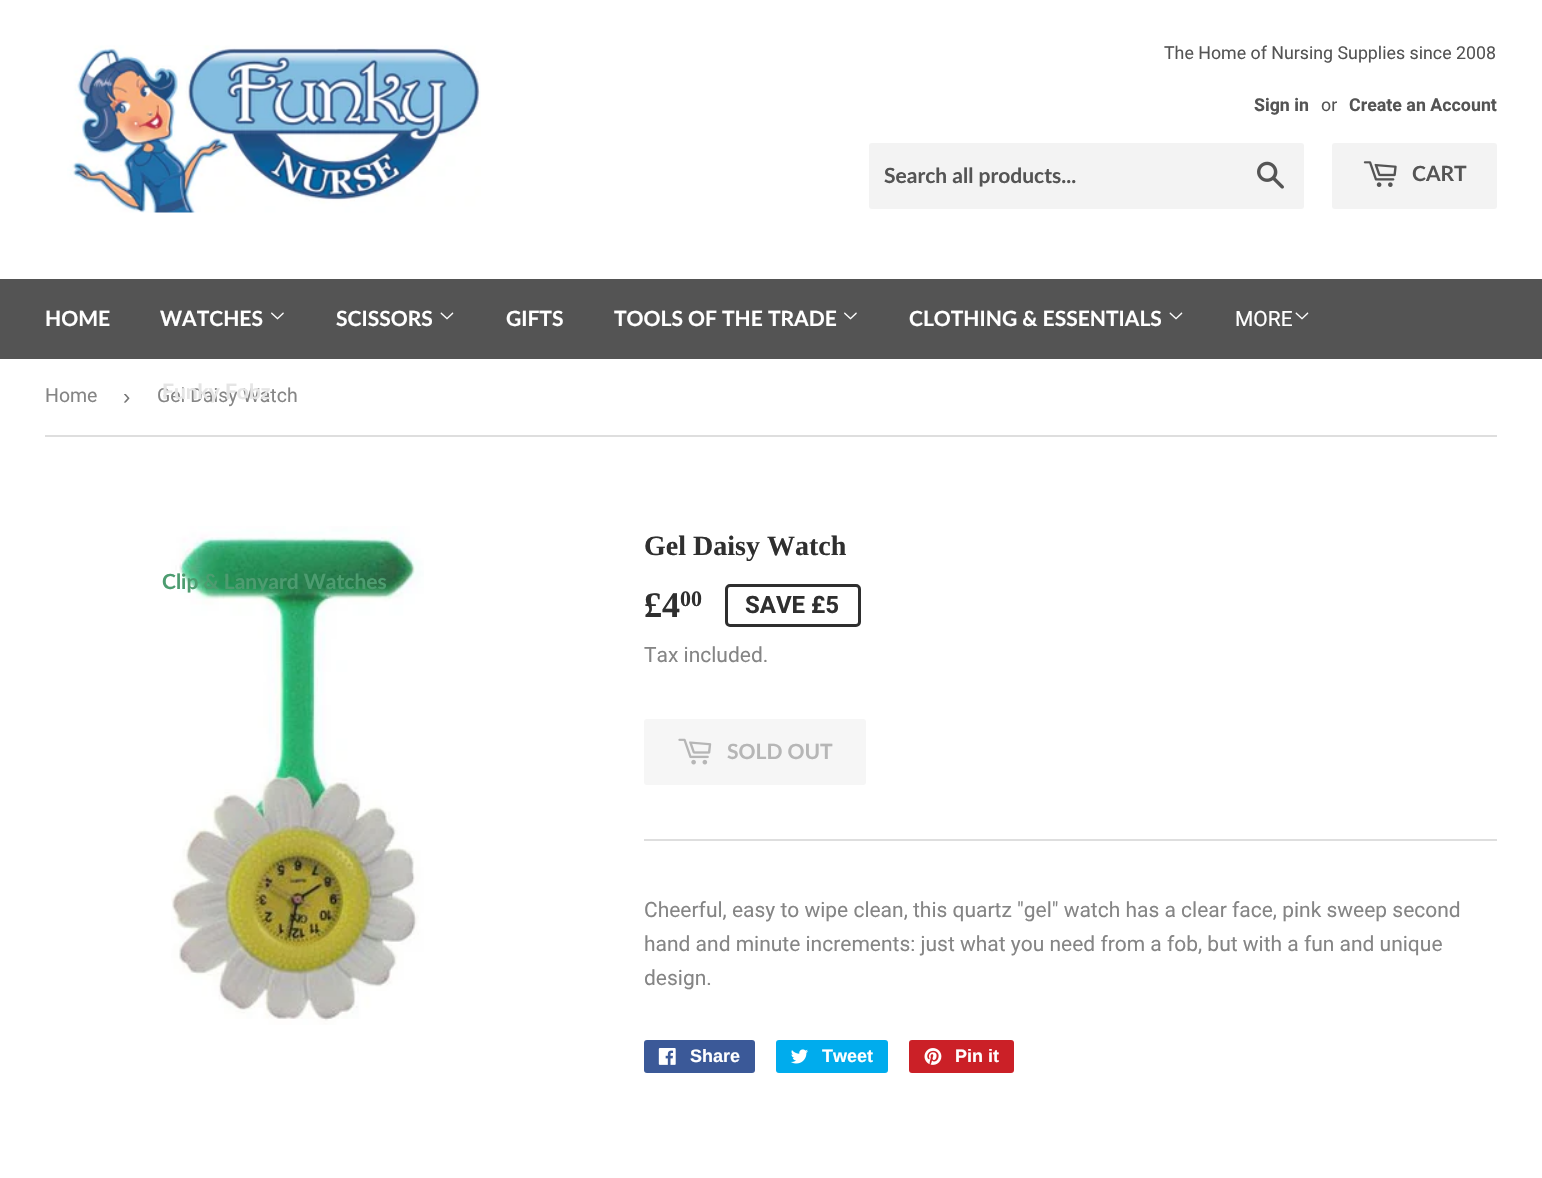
void draw(SkCanvas* canvas) {
	SkPaint fill;
	fill.setAntiAlias(true);
	auto makeFont = [&](const char* family, int weight, float size, bool italic = false) {
		SkFontStyle style(weight, SkFontStyle::kNormal_Width,
			italic ? SkFontStyle::kItalic_Slant : SkFontStyle::kUpright_Slant);
		SkFont result(fontMgr->matchFamilyStyle(family, style), size);
		result.setSubpixel(true);
		return result;
	};
	auto text = [&](const char* s, float x, float y, const SkFont& font) {
		canvas->drawString(s, x, y, font, fill);
	};
	auto box = [&](float l, float t, float r, float b) {
		canvas->drawRect(SkRect::MakeLTRB(l, t, r, b), fill);
	};
	auto roundBox = [&](float l, float t, float r, float b, float radius) {
		canvas->drawRoundRect(SkRect::MakeLTRB(l, t, r, b), radius, radius, fill);
	};
	auto picture = [&](const char* path, float l, float t, float r, float b) {
		auto image = SkImages::DeferredFromEncodedData(SkData::MakeFromFileName(path));
		canvas->drawImageRect(image, SkRect::MakeLTRB(l, t, r, b), SkSamplingOptions());
	};
	canvas->clear(0xFFFFFFFF);
	picture("image0.png", 67, 45, 481, 213);
	fill.setColor(0xFFF3F3F3);
	roundBox(869, 143, 1304, 209, 3);
	picture("image1.png", 1257, 161, 1284, 189);
	roundBox(1332, 143, 1497, 209, 3);
	picture("image2.png", 1363, 161, 1397, 187);
	fill.setColor(0xFF545454);
	box(0, 279, 1542, 359);
	picture("image3.png", 271, 312, 284, 320);
	picture("image4.png", 440, 312, 454, 320);
	picture("image3.png", 844, 312, 857, 320);
	picture("image4.png", 1169, 312, 1183, 320);
	picture("image4.png", 1295, 312, 1309, 320);
	fill.setColor(0xFFDEDEDE);
	box(45, 435, 1497, 437);
	picture("image5.png", 171, 526, 424, 1025);
	fill.setStyle(SkPaint::kStroke_Style);
	fill.setStrokeWidth(3);
	fill.setColor(0xFF2F2F2F);
	canvas->drawRoundRect(SkRect::MakeLTRB(726.5f, 585.5f, 859.5f, 625.5f), 3.5f, 3.5f, fill);
	fill.setStyle(SkPaint::kFill_Style);
	fill.setColor(0xFFF6F6F6);
	roundBox(644, 719, 866, 785, 3);
	picture("image6.png", 678, 738, 712, 765);
	fill.setColor(0xFFDEDEDE);
	box(644, 839, 1497, 841);
	fill.setColor(0xFF3B5998);
	roundBox(644, 1040, 755, 1073, 3);
	picture("image7.png", 658, 1048, 676, 1065);
	fill.setColor(0xFF00ACED);
	roundBox(776, 1040, 888, 1073, 3);
	picture("image8.png", 791, 1049, 808, 1064);
	fill.setColor(0xFFCB2027);
	roundBox(909, 1040, 1014, 1073, 3);
	picture("image9.png", 924, 1048, 942, 1065);
	auto font1 = makeFont("Roboto", 400, 17.8f);
	fill.setColor(0xFF545454);
	text("The Home of Nursing Supplies since 2008", 1164, 59, font1);
	auto font2 = makeFont("Roboto", 700, 17.8f);
	text("Sign in", 1254, 111, font2);
	text("or", 1321, 111, font1);
	text("Create an Account", 1349, 111, font2);
	auto font3 = makeFont("Lato", 700, 21);
	text("Search all products...", 884, 183, font3);
	text("CART", 1412, 181, font3);
	fill.setColor(0xFFFFFFFF);
	text("HOME", 45, 326, font3);
	text("WATCHES", 160, 326, font3);
	fill.setColor(0xFF4D9C70);
	text("Clip & Lanyard Watches", 162, 589, font3);
	fill.setColor(0xFFFFFFFF);
	text("SCISSORS", 336, 326, font3);
	text("GIFTS", 506, 326, font3);
	text("TOOLS OF THE TRADE", 614, 326, font3);
	text("CLOTHING & ESSENTIALS", 909, 326, font3);
	auto font4 = makeFont("Roboto", 400, 21);
	text("MORE", 1235, 326, font4);
	auto font5 = makeFont("Roboto", 400, 19.5f);
	fill.setColor(0xFF858585);
	text("Home", 45, 402, font5);
	auto font6 = makeFont("Liberation Sans", 400, 22);
	fill.setColor(0xFF767676);
	text("›", 123, 404, font6);
	fill.setColor(0xFF858585);
	text("Gel Daisy Watch", 157, 402, font5);
	fill.setColor(0xFFE5E5E5);
	text("Funky Fobz", 162, 399, font3);
	auto font7 = makeFont("Liberation Serif", 700, 28);
	fill.setColor(0xFF2F2F2F);
	text("Gel Daisy Watch", 644, 555, font7);
	auto font8 = makeFont("Liberation Serif", 700, 36);
	text("£4", 644, 617, font8);
	auto font9 = makeFont("Liberation Serif", 700, 22);
	text("00", 680, 606, font9);
	auto font10 = makeFont("Roboto", 700, 24);
	text("SAVE £5", 745, 613, font10);
	fill.setColor(0xFF858585);
	text("Tax included.", 644, 662, font4);
	fill.setColor(0xFFB6B6B6);
	text("SOLD OUT", 727, 759, font3);
	fill.setColor(0xFF858585);
	text("Cheerful, easy to wipe clean, this quartz \"gel\" watch has a clear face, pink sweep second", 644, 917, font4);
	text("hand and minute increments: just what you need from a fob, but with a fun and unique", 644, 951, font4);
	text("design.", 644, 985, font4);
	auto font11 = makeFont("Liberation Sans", 700, 18);
	fill.setColor(0xFFFFFFFF);
	text("Share", 690, 1062, font11);
	text("Tweet", 822, 1062, font11);
	text("Pin it", 955, 1062, font11);
}
